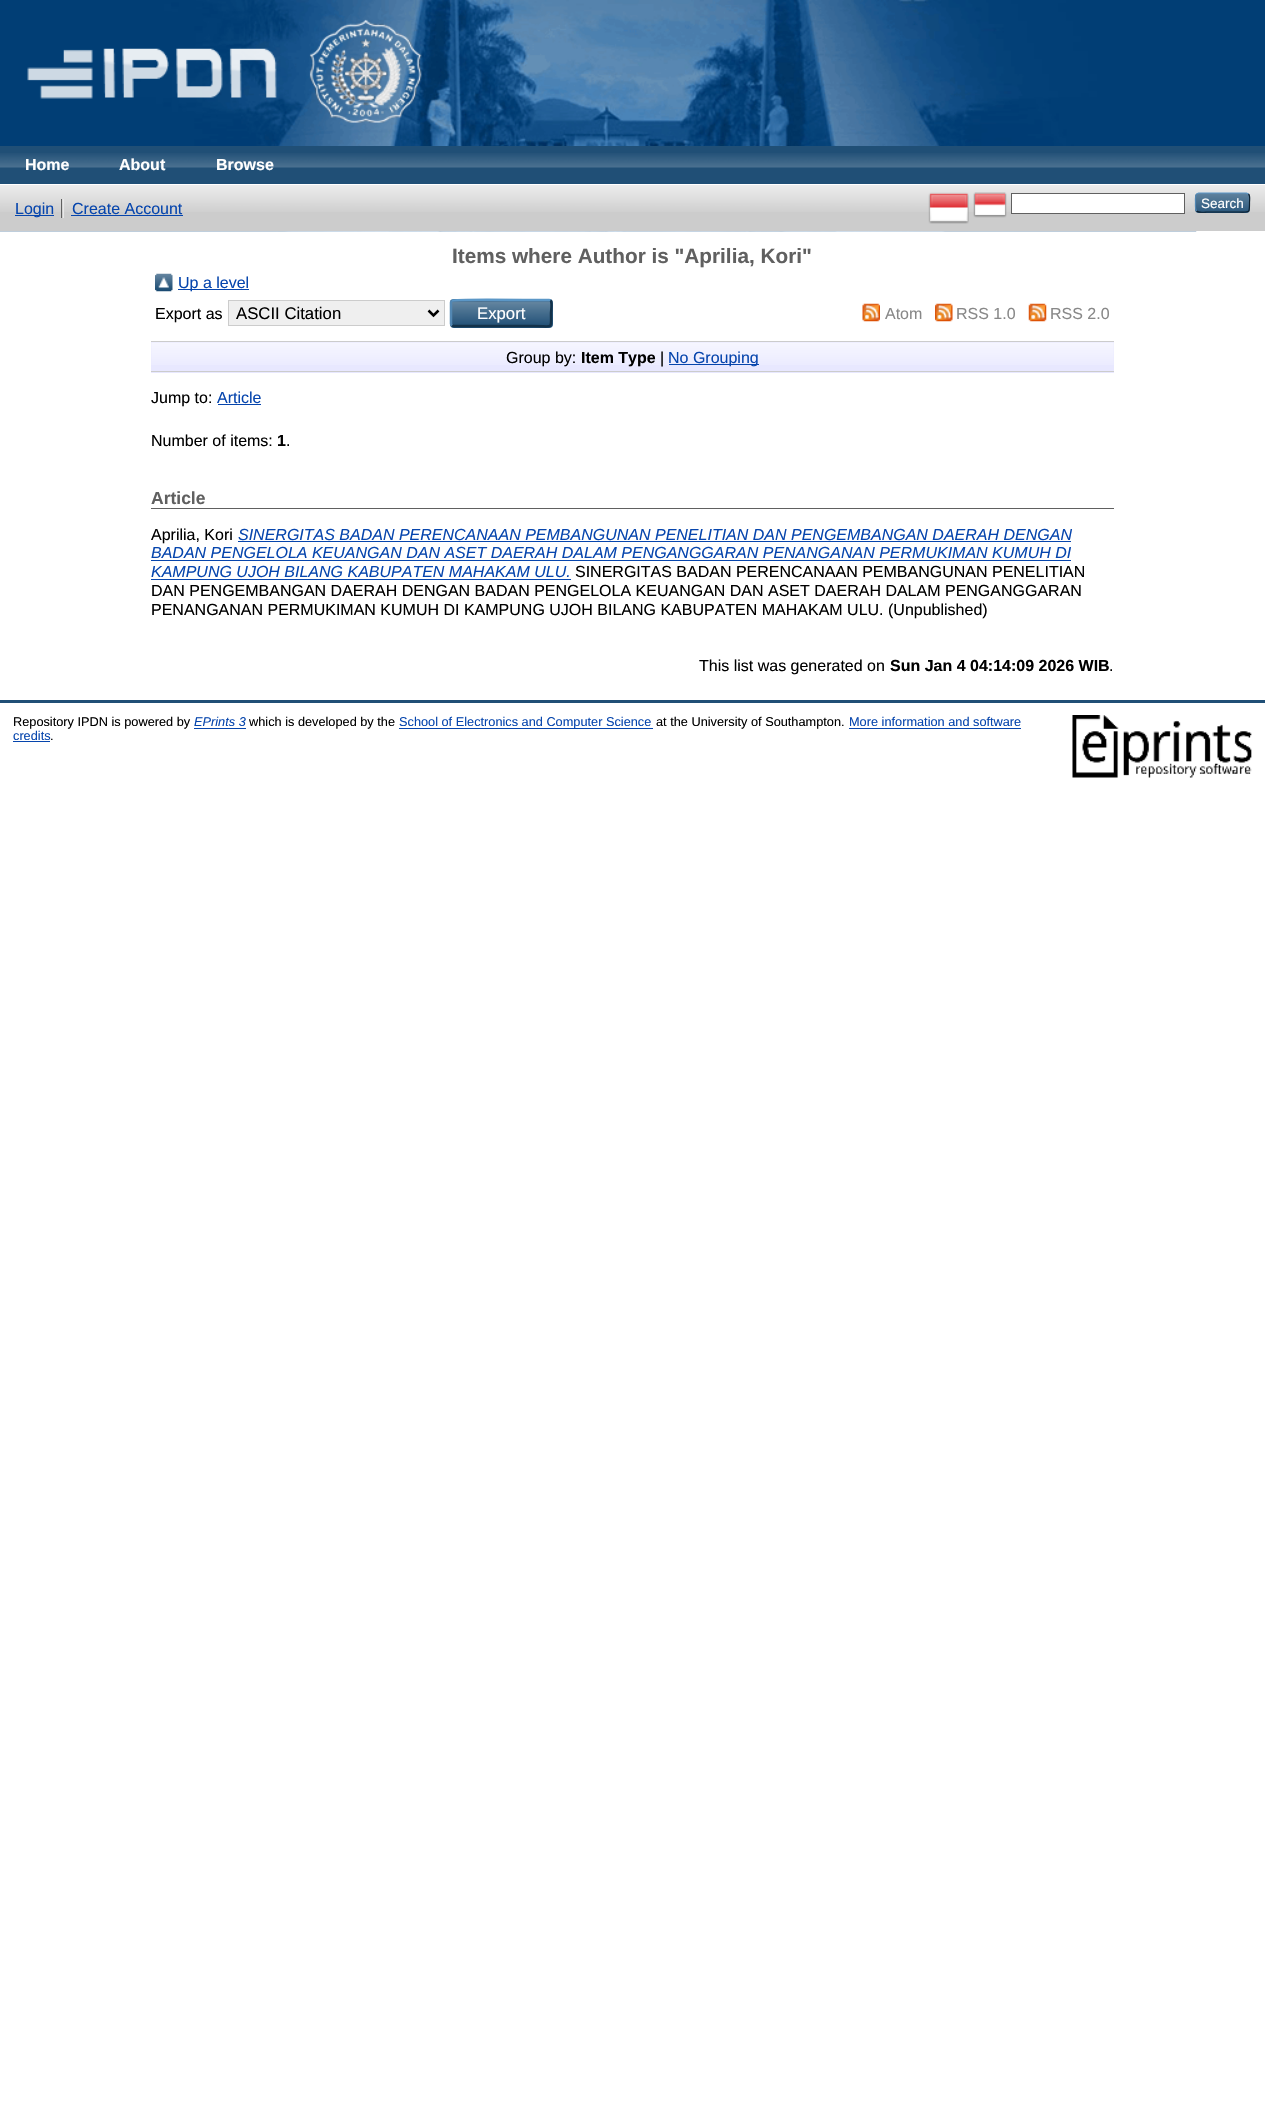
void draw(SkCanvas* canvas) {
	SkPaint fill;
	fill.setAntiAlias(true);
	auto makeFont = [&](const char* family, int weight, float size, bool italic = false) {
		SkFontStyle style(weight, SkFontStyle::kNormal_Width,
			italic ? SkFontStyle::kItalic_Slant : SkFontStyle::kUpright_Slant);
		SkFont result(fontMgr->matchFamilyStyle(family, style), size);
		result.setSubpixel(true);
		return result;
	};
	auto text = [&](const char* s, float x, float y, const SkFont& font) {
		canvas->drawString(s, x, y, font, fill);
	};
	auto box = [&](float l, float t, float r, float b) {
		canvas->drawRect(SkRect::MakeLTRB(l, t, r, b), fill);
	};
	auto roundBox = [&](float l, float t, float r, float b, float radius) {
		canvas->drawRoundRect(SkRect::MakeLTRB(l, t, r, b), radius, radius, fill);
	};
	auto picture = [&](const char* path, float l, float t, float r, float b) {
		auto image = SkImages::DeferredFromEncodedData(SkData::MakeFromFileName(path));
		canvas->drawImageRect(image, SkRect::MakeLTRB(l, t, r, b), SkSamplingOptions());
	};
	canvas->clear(0xFFFFFFFF);
	fill.setColor(0xFF013E75);
	box(1196, 0, 1265, 146);
	picture("image0.png", 0, 0, 1197, 232);
	picture("image1.png", 27, 19, 422, 123);
	fill.setColor(0xFF204F76);
	box(0, 146, 1265, 184);
	picture("image2.png", 0, 153, 1265, 168);
	fill.setColor(0xFFFFFFFF);
	box(0, 184, 1197, 185);
	fill.setColor(0xFFCCCCCC);
	box(0, 185, 1265, 231);
	picture("image3.png", 0, 185, 1265, 212);
	fill.setColor(0xFF606060);
	box(61, 199, 62, 218);
	fill.setColor(0xFF0645AD);
	box(15, 215, 54, 216);
	fill.setColor(0xFFE8E8E8);
	box(63, 199, 64, 218);
	fill.setColor(0xFF0645AD);
	box(71, 215, 183, 216);
	picture("image4.png", 928, 192, 969, 224);
	picture("image5.png", 973, 192, 1007, 218);
	fill.setColor(0xFFFFFFFF);
	canvas->drawRect(SkRect::MakeLTRB(1011.5f, 193.5f, 1184.5f, 213.5f), fill);
	fill.setStyle(SkPaint::kStroke_Style);
	fill.setStrokeWidth(1);
	fill.setColor(0xFF606060);
	canvas->drawRect(SkRect::MakeLTRB(1011.5f, 193.5f, 1184.5f, 213.5f), fill);
	fill.setStyle(SkPaint::kFill_Style);
	fill.setColor(0xFF1F4F76);
	roundBox(1195, 193, 1250, 213, 4);
	picture("image6.png", 1195, 193, 1250, 212);
	fill.setStyle(SkPaint::kStroke_Style);
	fill.setStrokeWidth(1.2f);
	fill.setColor(0xFF5B97C7);
	canvas->drawPath(SkPathBuilder().moveTo(1196.5f, 194).lineTo(1198.5f, 193).lineTo(1246.5f, 193).lineTo(1248.5f, 194).detach(), fill);
	fill.setColor(0xFF0D2131);
	canvas->drawPath(SkPathBuilder().moveTo(1248.5f, 194).cubicTo(1250.5f, 196, 1249.5f, 200, 1249.5f, 202.5f).cubicTo(1249.5f, 213.5f, 1250, 212, 1238.5f, 212).lineTo(1206.5f, 212).cubicTo(1206, 212, 1198.5f, 213, 1196.5f, 211).detach(), fill);
	fill.setColor(0xFF5287B3);
	canvas->drawPath(SkPathBuilder().moveTo(1196.5f, 211).cubicTo(1195, 209, 1195.5f, 204.5f, 1195.5f, 202.5f).cubicTo(1195.5f, 200.5f, 1195, 196, 1196.5f, 194).detach(), fill);
	picture("image7.png", 155, 273, 173, 292);
	fill.setStyle(SkPaint::kFill_Style);
	fill.setColor(0xFF0645AD);
	box(178, 289, 249, 290);
	fill.setColor(0xFFEFEFEF);
	canvas->drawRect(SkRect::MakeLTRB(228.5f, 300.5f, 444.5f, 325.5f), fill);
	fill.setStyle(SkPaint::kStroke_Style);
	fill.setStrokeWidth(1);
	fill.setColor(0xFFCCCCCC);
	canvas->drawRect(SkRect::MakeLTRB(228.5f, 300.5f, 444.5f, 325.5f), fill);
	fill.setStrokeWidth(2.5f);
	fill.setColor(0xFF000000);
	canvas->drawPath(SkPathBuilder().moveTo(428.5f, 310.5f).lineTo(433.5f, 315.5f).lineTo(438.5f, 310.5f).detach(), fill);
	fill.setStyle(SkPaint::kFill_Style);
	fill.setColor(0xFF1F4F76);
	roundBox(450, 299, 553, 328, 4);
	picture("image8.png", 450, 301, 553, 325);
	fill.setStyle(SkPaint::kStroke_Style);
	fill.setColor(0xFF5B97C7);
	canvas->drawPath(SkPathBuilder().moveTo(452, 300.5f).lineTo(452.5f, 300.5f).cubicTo(454.5f, 299, 524.5f, 300, 533, 300).lineTo(549, 300).lineTo(550.5f, 300.5f).detach(), fill);
	fill.setColor(0xFF13324A);
	canvas->drawPath(SkPathBuilder().moveTo(550.5f, 300.5f).cubicTo(552.5f, 302.5f, 551, 310.5f, 551, 313).cubicTo(551, 330.5f, 553.5f, 326, 533, 326).lineTo(454, 326).lineTo(452, 325.5f).detach(), fill);
	fill.setColor(0xFF5287B3);
	canvas->drawPath(SkPathBuilder().moveTo(452, 325.5f).cubicTo(451.5f, 325, 451, 324.5f, 451, 324).lineTo(451, 302.5f).cubicTo(451, 302, 451.5f, 301, 452, 300.5f).detach(), fill);
	picture("image9.png", 862, 303, 880, 322);
	picture("image10.png", 935, 303, 953, 322);
	picture("image11.png", 1028, 303, 1047, 322);
	fill.setStyle(SkPaint::kFill_Style);
	fill.setColor(0xFFE8E8FF);
	box(151, 342, 1114, 373);
	picture("image12.png", 151, 342, 1114, 365);
	fill.setColor(0xFFCCCCCC);
	box(151, 341, 1114, 342);
	box(151, 371, 1114, 372);
	fill.setColor(0xFF0645AD);
	box(669, 364, 759, 365);
	box(218, 404, 261, 405);
	fill.setColor(0xFF606060);
	box(151, 508, 1114, 509);
	fill.setColor(0xFF0645AD);
	box(238, 541, 1071, 542);
	box(151, 560, 1071, 561);
	box(151, 579, 571, 580);
	fill.setColor(0xFF204F76);
	box(0, 700, 1265, 703);
	fill.setColor(0xFF0645AD);
	box(194, 728, 246, 729);
	box(399, 728, 653, 729);
	box(849, 728, 1021, 729);
	box(13, 741, 50, 742);
	picture("image13.png", 1072, 715, 1252, 778);
	auto font1 = makeFont("Liberation Sans", 700, 16);
	fill.setColor(0xFFFFFFFF);
	text("Home", 25, 170, font1);
	text("About", 119, 170, font1);
	text("Browse", 216, 170, font1);
	auto font2 = makeFont("Liberation Sans", 400, 16);
	fill.setColor(0xFF0645AD);
	text("Login", 15, 214, font2);
	text("Create Account", 72, 214, font2);
	auto font3 = makeFont("Liberation Sans", 400, 13.5f);
	fill.setColor(0xFFFFFFFF);
	text("Search", 1201, 208, font3);
	auto font4 = makeFont("Liberation Sans", 700, 20.75f);
	fill.setColor(0xFF606060);
	text("Items where Author is \"Aprilia, Kori\"", 452, 263, font4);
	fill.setColor(0xFF0645AD);
	text("Up a level", 178, 288, font2);
	fill.setColor(0xFF000000);
	text("Export as", 155, 319, font2);
	auto font5 = makeFont("Liberation Sans", 400, 16.75f);
	text("ASCII Citation", 236, 319, font5);
	fill.setColor(0xFFFFFFFF);
	text("Export", 477, 319, font5);
	fill.setColor(0xFF888888);
	text("Atom", 885, 319, font2);
	text("RSS 1.0", 956, 319, font2);
	text("RSS 2.0", 1050, 319, font2);
	fill.setColor(0xFF000000);
	text("Group by:", 506, 363, font2);
	text("Item Type", 581, 363, font1);
	text("|", 660, 363, font2);
	fill.setColor(0xFF0645AD);
	text("No Grouping", 668, 363, font2);
	fill.setColor(0xFF000000);
	text("Jump to:", 151, 403, font2);
	fill.setColor(0xFF0645AD);
	text("Article", 217, 403, font2);
	fill.setColor(0xFF000000);
	text("Number of items:", 151, 446, font2);
	text("1", 277, 446, font1);
	text(".", 286, 446, font2);
	auto font6 = makeFont("Liberation Sans", 700, 17.5f);
	fill.setColor(0xFF606060);
	text("Article", 151, 504, font6);
	fill.setColor(0xFF000000);
	text("Aprilia, Kori", 151, 540, font2);
	auto font7 = makeFont("Liberation Sans", 400, 16, true);
	fill.setColor(0xFF0645AD);
	text("SINERGITAS BADAN PERENCANAAN PEMBANGUNAN PENELITIAN DAN PENGEMBANGAN DAERAH DENGAN", 238, 540, font7);
	text("BADAN PENGELOLA KEUANGAN DAN ASET DAERAH DALAM PENGANGGARAN PENANGANAN PERMUKIMAN KUMUH DI", 151, 558, font7);
	text("KAMPUNG UJOH BILANG KABUPATEN MAHAKAM ULU.", 151, 577, font7);
	fill.setColor(0xFF000000);
	text("SINERGITAS BADAN PERENCANAAN PEMBANGUNAN PENELITIAN", 575, 577, font2);
	text("DAN PENGEMBANGAN DAERAH DENGAN BADAN PENGELOLA KEUANGAN DAN ASET DAERAH DALAM PENGANGGARAN", 151, 596, font2);
	text("PENANGANAN PERMUKIMAN KUMUH DI KAMPUNG UJOH BILANG KABUPATEN MAHAKAM ULU. (Unpublished)", 151, 615, font2);
	text("This list was generated on", 699, 671, font2);
	text("Sun Jan 4 04:14:09 2026 WIB", 890, 671, font1);
	text(".", 1109, 671, font2);
	auto font8 = makeFont("Liberation Sans", 400, 12.75f);
	text("Repository IPDN is powered by", 13, 726, font8);
	auto font9 = makeFont("Liberation Sans", 400, 12.75f, true);
	fill.setColor(0xFF0645AD);
	text("EPrints 3", 194, 726, font9);
	fill.setColor(0xFF000000);
	text("which is developed by the", 249, 726, font8);
	fill.setColor(0xFF0645AD);
	text("School of Electronics and Computer Science", 399, 726, font8);
	fill.setColor(0xFF000000);
	text("at the University of Southampton.", 656, 726, font8);
	fill.setColor(0xFF0645AD);
	text("More information and software", 849, 726, font8);
	text("credits", 13, 740, font8);
	fill.setColor(0xFF000000);
	text(".", 50, 740, font8);
}
